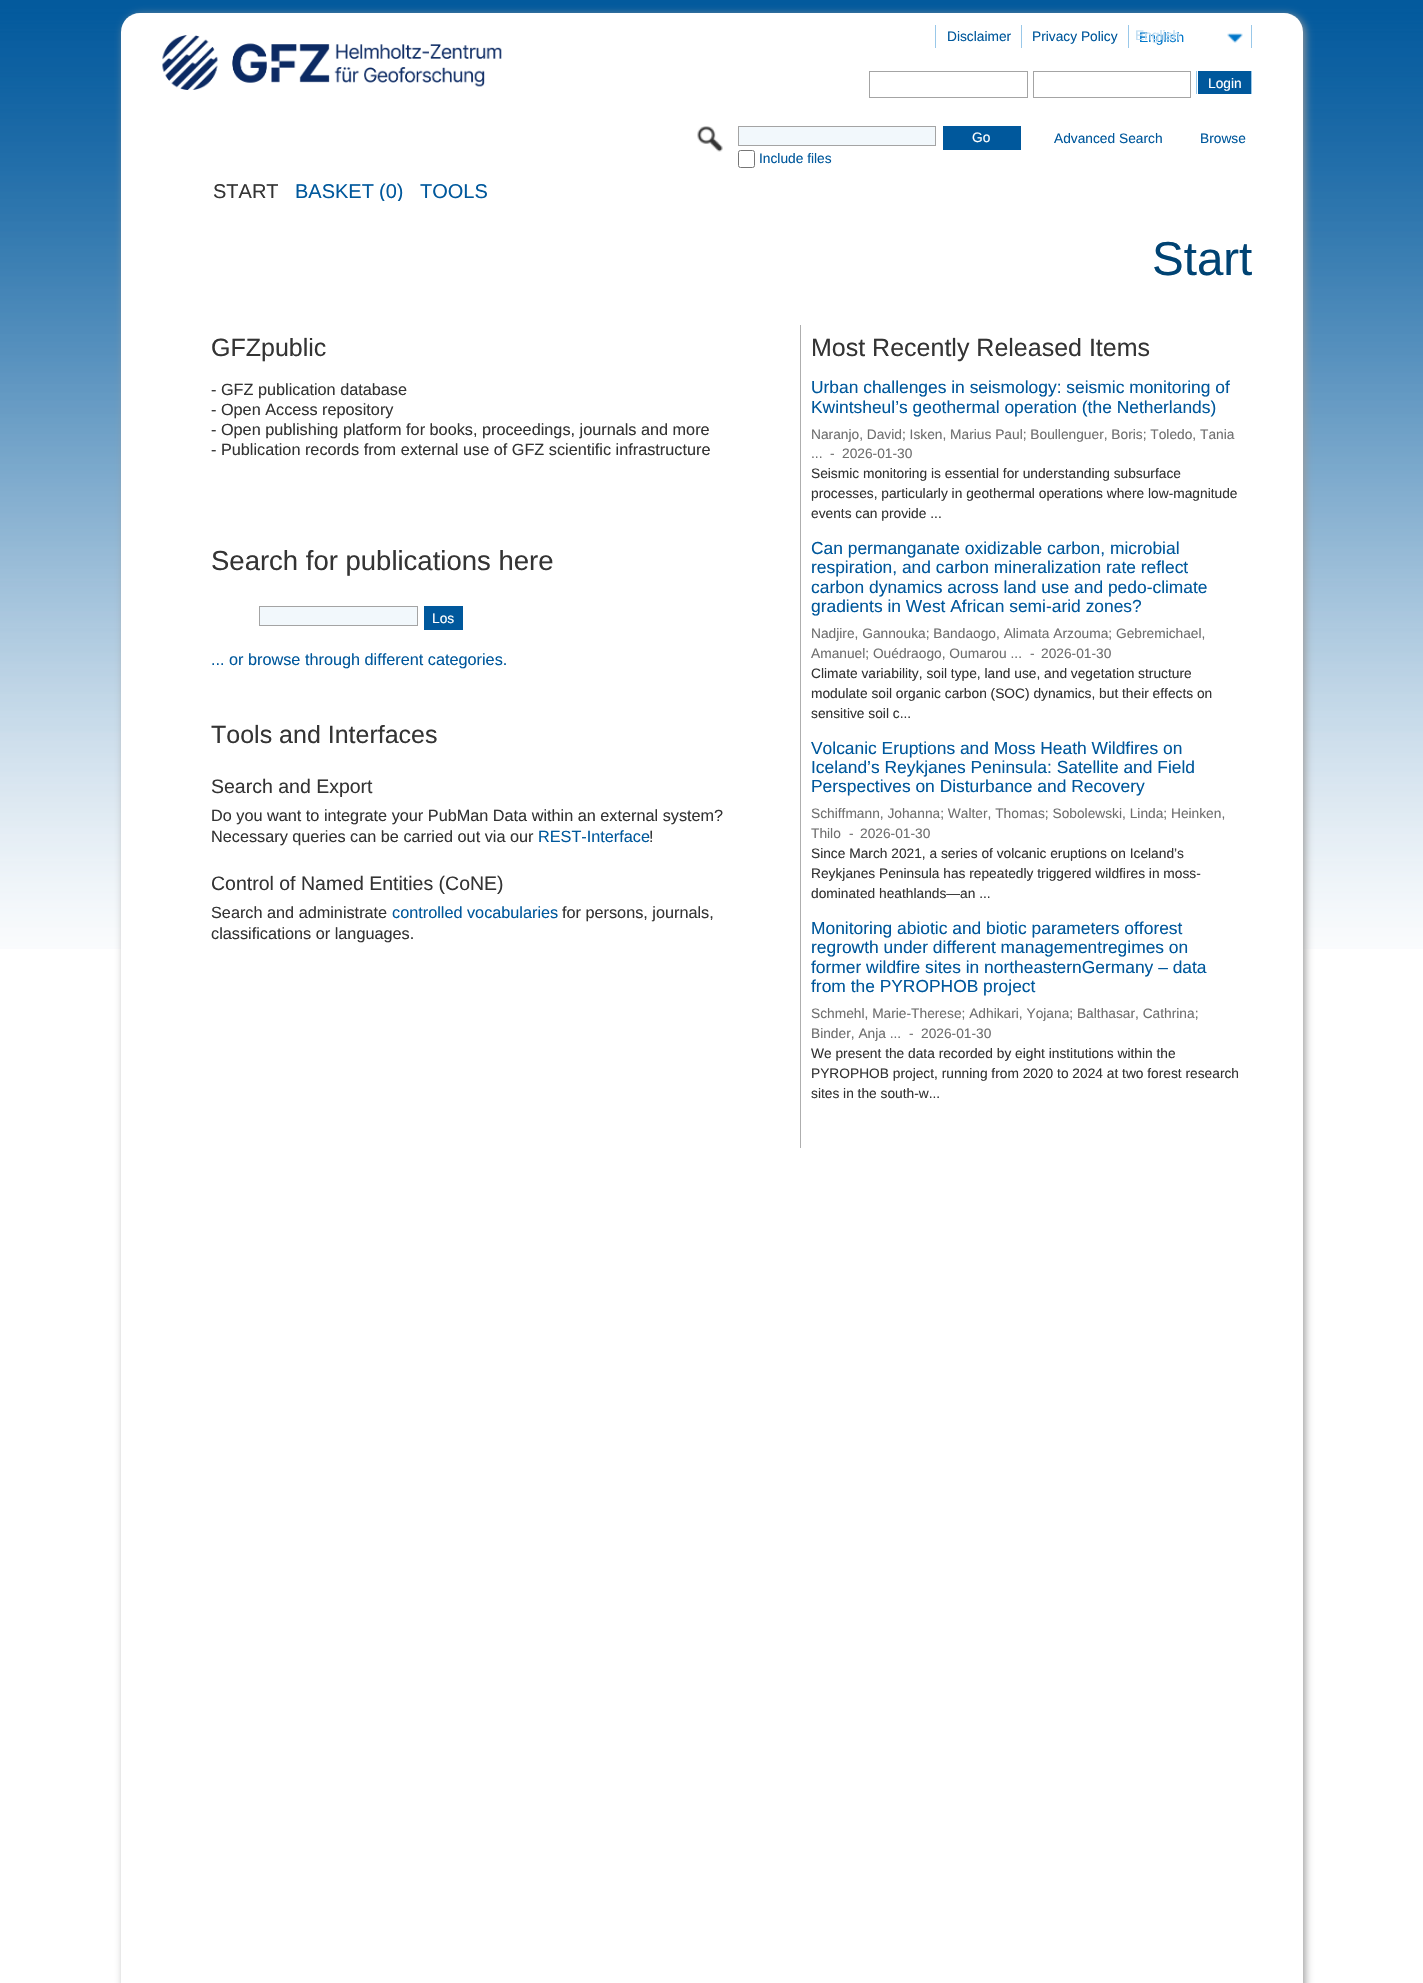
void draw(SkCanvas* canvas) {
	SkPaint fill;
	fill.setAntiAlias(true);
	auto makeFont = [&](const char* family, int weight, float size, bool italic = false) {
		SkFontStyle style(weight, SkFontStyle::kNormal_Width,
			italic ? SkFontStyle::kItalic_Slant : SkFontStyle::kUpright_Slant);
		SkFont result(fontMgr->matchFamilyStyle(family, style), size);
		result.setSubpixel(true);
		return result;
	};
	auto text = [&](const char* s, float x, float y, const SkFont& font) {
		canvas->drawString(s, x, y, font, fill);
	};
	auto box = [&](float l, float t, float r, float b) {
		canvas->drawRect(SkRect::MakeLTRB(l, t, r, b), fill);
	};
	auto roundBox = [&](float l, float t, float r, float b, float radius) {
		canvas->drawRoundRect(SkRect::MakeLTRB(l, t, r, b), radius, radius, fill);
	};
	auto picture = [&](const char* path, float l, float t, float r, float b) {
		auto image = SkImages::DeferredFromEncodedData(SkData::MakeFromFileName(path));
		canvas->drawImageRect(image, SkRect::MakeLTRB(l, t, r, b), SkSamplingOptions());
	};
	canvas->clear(0xFFFFFFFF);
	picture("image0.png", 0, 0, 1423, 949);
	fill.setColor(0xFF999999);
	fill.setMaskFilter(SkMaskFilter::MakeBlur(kNormal_SkBlurStyle, 4));
	canvas->drawRoundRect(SkRect::MakeLTRB(124, 15, 1305, 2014), 19, 19, fill);
	fill.setMaskFilter(nullptr);
	fill.setColor(0xFFFFFFFF);
	roundBox(121, 13, 1303, 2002, 19);
	fill.setColor(0xFF99C8E9);
	box(935, 25, 936, 48);
	box(1021, 25, 1022, 48);
	box(1128, 25, 1129, 48);
	picture("image1.png", 1227, 33, 1243, 43);
	box(1251, 25, 1252, 48);
	fill.setStyle(SkPaint::kStroke_Style);
	fill.setStrokeWidth(1);
	fill.setColor(0xFFA4A4A4);
	canvas->drawRect(SkRect::MakeLTRB(869.5f, 71.5f, 1027.5f, 97.5f), fill);
	canvas->drawRect(SkRect::MakeLTRB(1033.5f, 71.5f, 1190.5f, 97.5f), fill);
	fill.setStyle(SkPaint::kFill_Style);
	fill.setColor(0xFF99C8E9);
	box(1196, 71, 1197, 94);
	fill.setColor(0xFF00589C);
	box(1198, 71, 1251, 94);
	fill.setColor(0xFF99C8E9);
	box(1251, 71, 1252, 94);
	picture("image2.png", 162, 35, 502, 90);
	picture("image3.png", 697, 126, 723, 152);
	fill.setColor(0xFF00589C);
	box(943, 126, 1021, 150);
	fill.setColor(0xFFF2F8FC);
	canvas->drawRect(SkRect::MakeLTRB(738.5f, 126.5f, 935.5f, 145.5f), fill);
	fill.setStyle(SkPaint::kStroke_Style);
	fill.setColor(0xFFA4A4A4);
	canvas->drawRect(SkRect::MakeLTRB(738.5f, 126.5f, 935.5f, 145.5f), fill);
	fill.setColor(0xFF767676);
	canvas->drawRoundRect(SkRect::MakeLTRB(738.5f, 150.5f, 754.5f, 167.5f), 2, 2, fill);
	fill.setStyle(SkPaint::kFill_Style);
	fill.setColor(0xFFF2F8FC);
	canvas->drawRect(SkRect::MakeLTRB(259.5f, 606.5f, 417.5f, 625.5f), fill);
	fill.setStyle(SkPaint::kStroke_Style);
	fill.setColor(0xFFA4A4A4);
	canvas->drawRect(SkRect::MakeLTRB(259.5f, 606.5f, 417.5f, 625.5f), fill);
	fill.setStyle(SkPaint::kFill_Style);
	fill.setColor(0xFF00589C);
	box(424, 606, 463, 630);
	fill.setColor(0xFFAEAEAE);
	box(800, 325, 801, 1148);
	auto font1 = makeFont("Liberation Sans", 400, 13.75f);
	fill.setColor(0xFF00589C);
	text("Disclaimer", 947, 41, font1);
	text("Privacy Policy", 1032, 41, font1);
	fill.setColor(0xFF0076C9);
	text("English", 1139, 42, font1);
	fill.setColor(0xFFC0DDF2);
	text("English", 1135, 40, font1);
	fill.setColor(0xFFFFFFFF);
	text("Login", 1208, 88, font1);
	text("Go", 972, 142, font1);
	fill.setColor(0xFF00589C);
	text("Advanced Search", 1054, 143, font1);
	text("Browse", 1200, 143, font1);
	text("Include files", 759, 163, font1);
	auto font2 = makeFont("Liberation Sans", 400, 20);
	fill.setColor(0xFF343434);
	text("START", 213, 198, font2);
	fill.setColor(0xFF00589C);
	text("BASKET", 295, 198, font2);
	canvas->save();
	canvas->clipRect(SkRect::MakeLTRB(295, 181, 404, 201));
	text("(0)", 379, 198, font2);
	canvas->restore();
	text("TOOLS", 420, 198, font2);
	auto font3 = makeFont("Liberation Sans", 400, 47.5f);
	fill.setColor(0xFF004373);
	text("Start", 1152, 275, font3);
	auto font4 = makeFont("Liberation Sans", 400, 25);
	fill.setColor(0xFF343434);
	text("GFZpublic", 211, 356, font4);
	auto font5 = makeFont("Liberation Sans", 400, 16.25f);
	text("- GFZ publication database", 211, 395, font5);
	text("- Open Access repository", 211, 415, font5);
	text("- Open publishing platform for books, proceedings, journals and more", 211, 435, font5);
	text("- Publication records from external use of GFZ scientific infrastructure", 211, 455, font5);
	auto font6 = makeFont("Liberation Sans", 400, 27.5f);
	text("Search for publications here", 211, 570, font6);
	fill.setColor(0xFFFFFFFF);
	text("Los", 432, 623, font1);
	fill.setColor(0xFF00589C);
	text("... or browse through different categories.", 211, 665, font5);
	fill.setColor(0xFF343434);
	text("Tools and Interfaces", 211, 743, font4);
	auto font7 = makeFont("Liberation Sans", 400, 19.5f);
	text("Search and Export", 211, 793, font7);
	text("Do you want to integrate your PubMan Data within an external system?", 211, 821, font5);
	text("Necessary queries can be carried out via our", 211, 842, font5);
	fill.setColor(0xFF00589C);
	text("REST-Interface", 538, 842, font5);
	fill.setColor(0xFF343434);
	text("!", 649, 842, font5);
	text("Control of Named Entities (CoNE)", 211, 890, font7);
	text("Search and administrate", 211, 918, font5);
	fill.setColor(0xFF00589C);
	text("controlled vocabularies", 392, 918, font5);
	fill.setColor(0xFF343434);
	text("for persons, journals,", 562, 918, font5);
	text("classifications or languages.", 211, 939, font5);
	text("Most Recently Released Items", 811, 356, font4);
	auto font8 = makeFont("Liberation Sans", 400, 17.4f);
	fill.setColor(0xFF00589C);
	text("Urban challenges in seismology: seismic monitoring of", 811, 393, font8);
	text("Kwintsheul’s geothermal operation (the Netherlands)", 811, 413, font8);
	fill.setColor(0xFF6F6F6F);
	text("Naranjo, David; Isken, Marius Paul; Boullenguer, Boris; Toledo, Tania", 811, 439, font1);
	text("-", 830, 458, font1);
	text("2026-01-30", 842, 458, font1);
	text("...", 811, 458, font1);
	fill.setColor(0xFF343434);
	text("Seismic monitoring is essential for understanding subsurface", 811, 478, font1);
	text("processes, particularly in geothermal operations where low-magnitude", 811, 498, font1);
	text("events can provide ...", 811, 518, font1);
	fill.setColor(0xFF00589C);
	text("Can permanganate oxidizable carbon, microbial", 811, 554, font8);
	text("respiration, and carbon mineralization rate reflect", 811, 573, font8);
	text("carbon dynamics across land use and pedo-climate", 811, 593, font8);
	text("gradients in West African semi-arid zones?", 811, 612, font8);
	fill.setColor(0xFF6F6F6F);
	text("Nadjire, Gannouka; Bandaogo, Alimata Arzouma; Gebremichael,", 811, 638, font1);
	text("Amanuel; Ouédraogo, Oumarou ...", 811, 658, font1);
	text("-", 1030, 658, font1);
	text("2026-01-30", 1041, 658, font1);
	fill.setColor(0xFF343434);
	text("Climate variability, soil type, land use, and vegetation structure", 811, 678, font1);
	text("modulate soil organic carbon (SOC) dynamics, but their effects on", 811, 698, font1);
	text("sensitive soil c...", 811, 718, font1);
	fill.setColor(0xFF00589C);
	text("Volcanic Eruptions and Moss Heath Wildfires on", 811, 754, font8);
	text("Iceland’s Reykjanes Peninsula: Satellite and Field", 811, 773, font8);
	text("Perspectives on Disturbance and Recovery", 811, 792, font8);
	fill.setColor(0xFF6F6F6F);
	text("Schiffmann, Johanna; Walter, Thomas; Sobolewski, Linda; Heinken,", 811, 818, font1);
	text("Thilo", 811, 838, font1);
	text("-", 849, 838, font1);
	text("2026-01-30", 860, 838, font1);
	fill.setColor(0xFF343434);
	text("Since March 2021, a series of volcanic eruptions on Iceland’s", 811, 858, font1);
	text("Reykjanes Peninsula has repeatedly triggered wildfires in moss-", 811, 878, font1);
	text("dominated heathlands—an ...", 811, 898, font1);
	fill.setColor(0xFF00589C);
	text("Monitoring abiotic and biotic parameters offorest", 811, 934, font8);
	text("regrowth under different managementregimes on", 811, 953, font8);
	text("former wildfire sites in northeasternGermany – data", 811, 973, font8);
	text("from the PYROPHOB project", 811, 992, font8);
	fill.setColor(0xFF6F6F6F);
	text("Schmehl, Marie-Therese; Adhikari, Yojana; Balthasar, Cathrina;", 811, 1018, font1);
	text("Binder, Anja ...", 811, 1038, font1);
	text("-", 909, 1038, font1);
	text("2026-01-30", 921, 1038, font1);
	fill.setColor(0xFF343434);
	text("We present the data recorded by eight institutions within the", 811, 1058, font1);
	text("PYROPHOB project, running from 2020 to 2024 at two forest research", 811, 1078, font1);
	text("sites in the south-w...", 811, 1098, font1);
}
